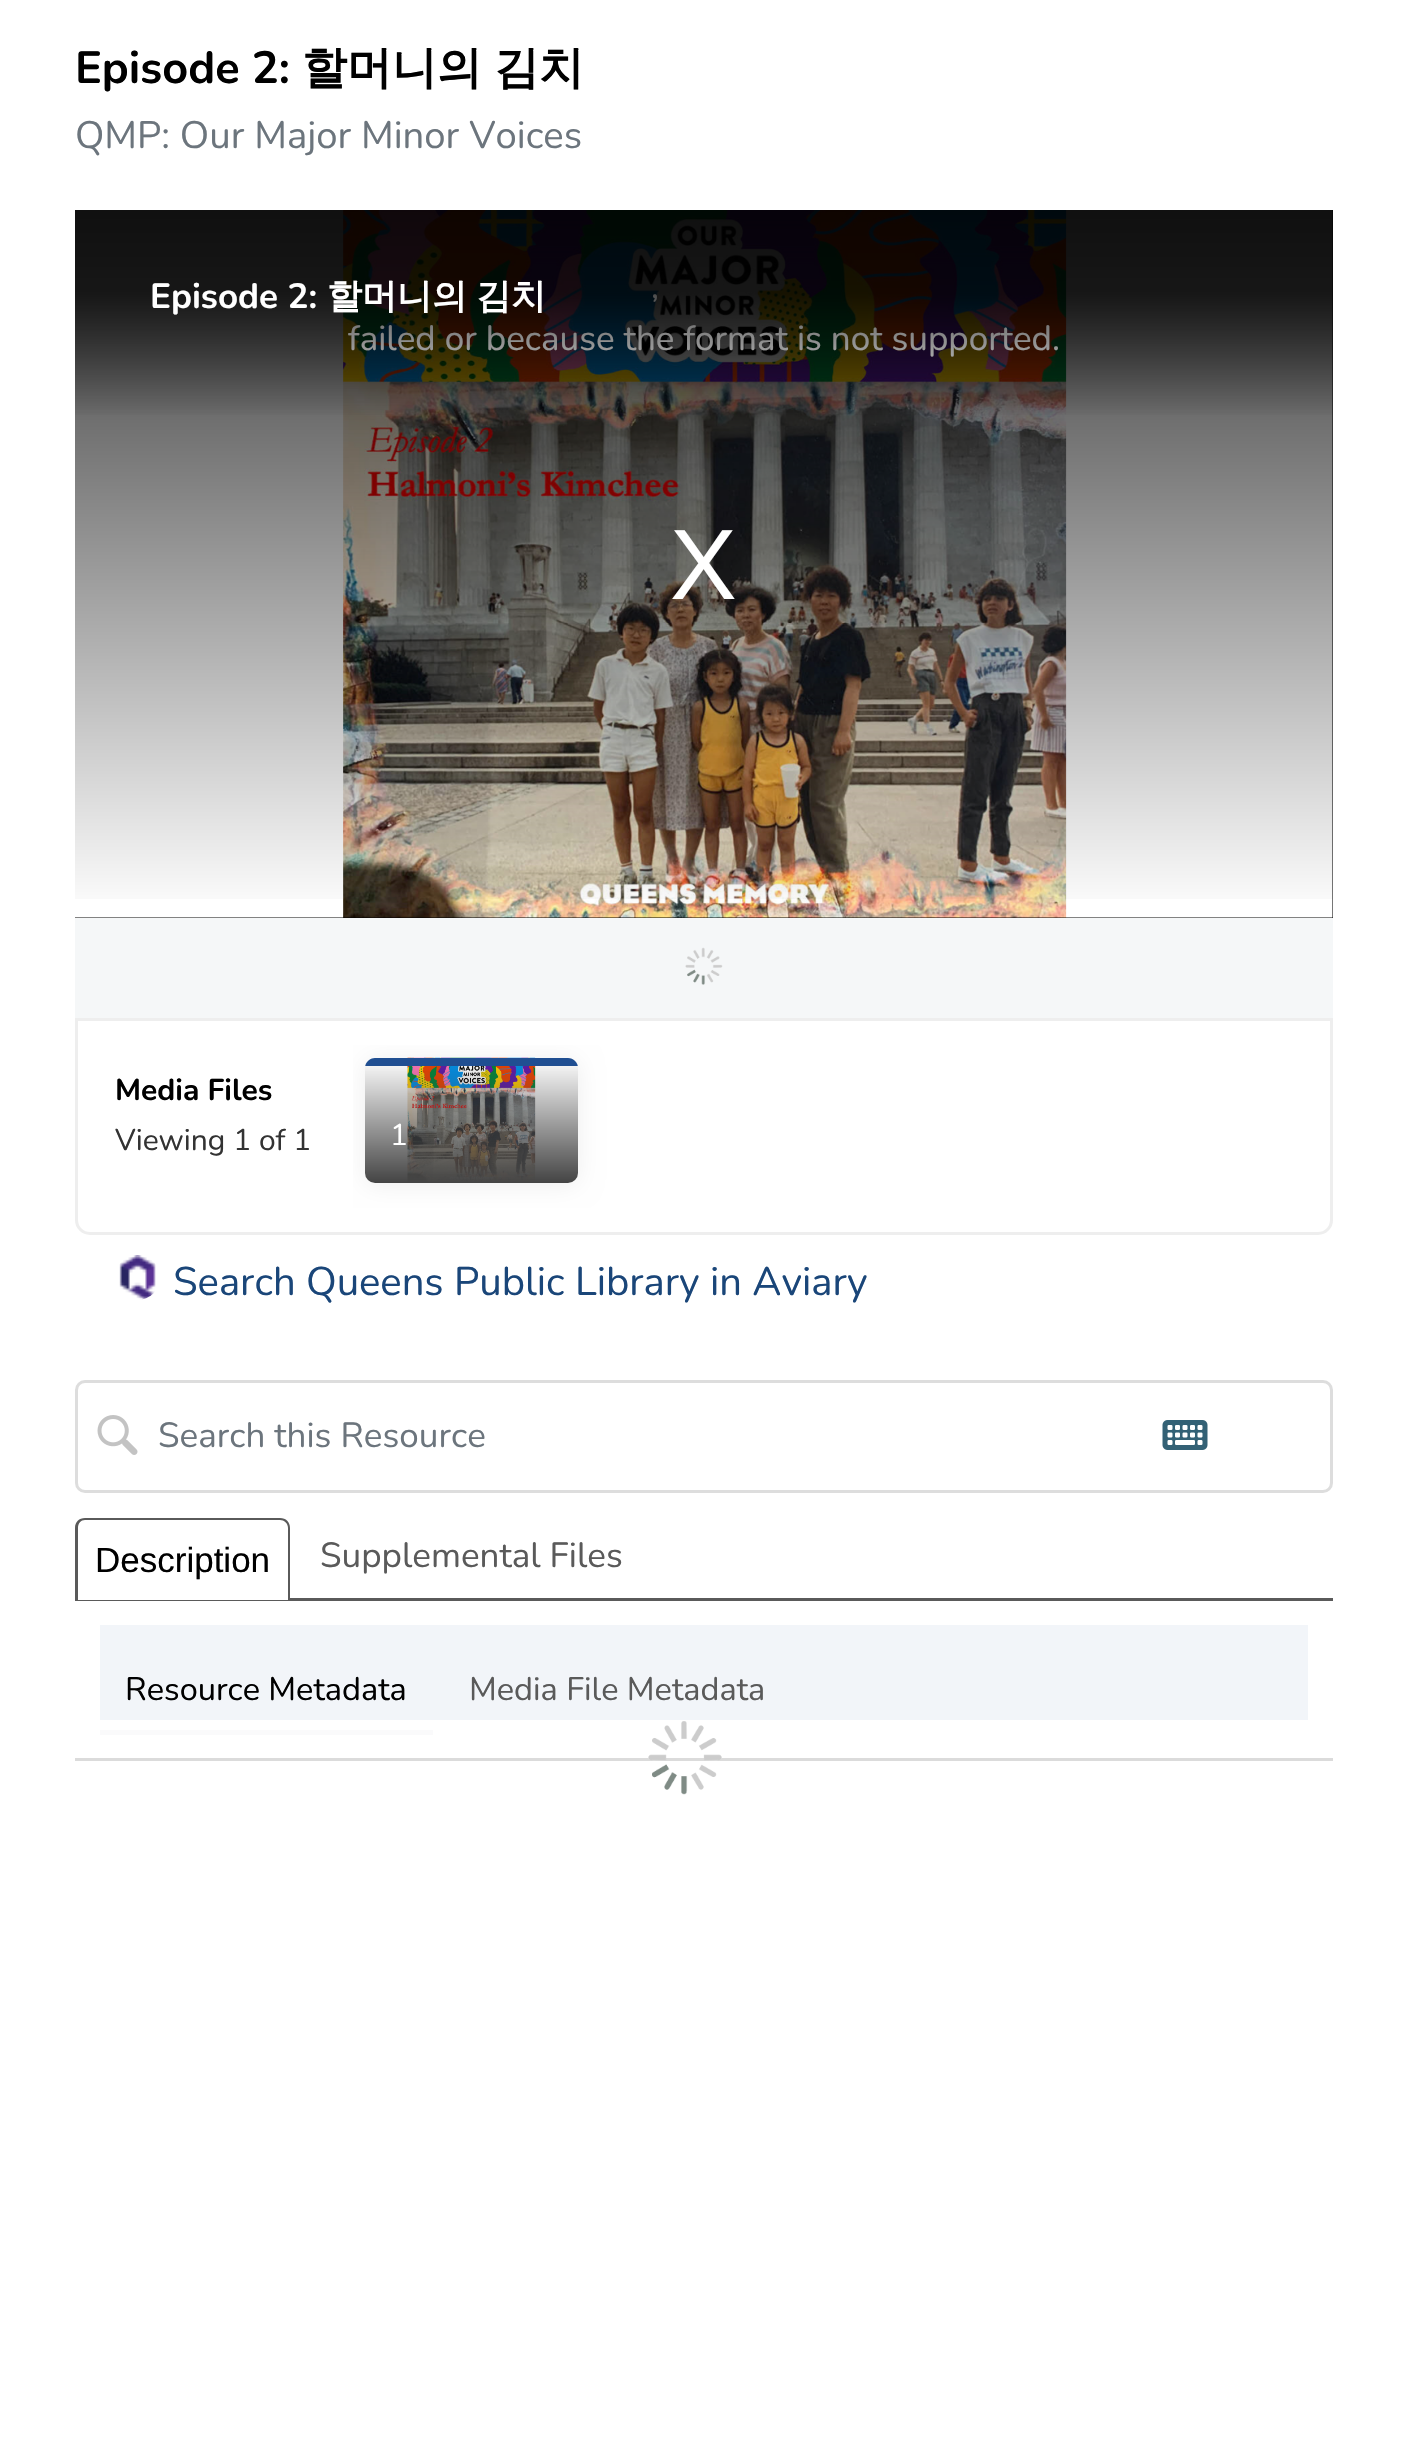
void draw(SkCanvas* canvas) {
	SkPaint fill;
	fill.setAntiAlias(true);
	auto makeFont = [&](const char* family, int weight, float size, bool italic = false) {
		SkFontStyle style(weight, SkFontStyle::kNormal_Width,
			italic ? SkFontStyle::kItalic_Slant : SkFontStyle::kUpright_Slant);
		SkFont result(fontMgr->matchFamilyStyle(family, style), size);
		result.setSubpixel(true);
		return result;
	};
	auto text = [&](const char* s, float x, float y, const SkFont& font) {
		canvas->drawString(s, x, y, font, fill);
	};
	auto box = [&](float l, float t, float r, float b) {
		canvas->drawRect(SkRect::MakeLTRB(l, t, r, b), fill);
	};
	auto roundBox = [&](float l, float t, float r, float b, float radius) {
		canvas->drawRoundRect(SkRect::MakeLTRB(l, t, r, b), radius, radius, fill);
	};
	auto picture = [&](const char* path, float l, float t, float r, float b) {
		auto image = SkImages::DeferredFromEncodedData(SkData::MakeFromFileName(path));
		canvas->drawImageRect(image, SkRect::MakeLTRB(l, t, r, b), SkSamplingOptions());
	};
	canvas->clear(0xFFFFFFFF);
	fill.setColor(0xFFDBDBDB);
	box(75, 1758, 1333, 1761);
	fill.setColor(0xFF000000);
	box(75, 210, 1333, 918);
	picture("image0.png", 75, 210, 1333, 918);
	{
		const SkColor colors[] = {0xCC000000, 0x00000000};
		const float stops[] = {0, 1};
		const SkPoint ends[] = {{704, 210}, {704, 918}};
		fill.setShader(SkGradientShader::MakeLinear(ends, colors, stops, 2, SkTileMode::kClamp));
		fill.setAlpha(255);
	}
	box(75, 210, 1333, 899);
	fill.setShader(nullptr);
	fill.setColor(0xFFF5F7F8);
	box(75, 918, 1333, 1018);
	picture("image1.png", 685, 947, 723, 985);
	fill.setStyle(SkPaint::kStroke_Style);
	fill.setStrokeWidth(3);
	fill.setColor(0xFFEEEEEE);
	canvas->drawPath(SkPathBuilder().moveTo(76.5f, 1019.5f).lineTo(1331.5f, 1019.5f).lineTo(1331.5f, 1220).cubicTo(1331.5f, 1227.5f, 1325.5f, 1233.5f, 1318, 1233.5f).lineTo(90, 1233.5f).cubicTo(82.5f, 1233.5f, 76.5f, 1227.5f, 76.5f, 1220).close().detach(), fill);
	canvas->save();
	canvas->clipRect(SkRect::MakeLTRB(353, 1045, 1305, 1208));
	fill.setStyle(SkPaint::kFill_Style);
	fill.setMaskFilter(SkMaskFilter::MakeBlur(kNormal_SkBlurStyle, 12.5f));
	canvas->drawRoundRect(SkRect::MakeLTRB(365, 1060, 578, 1185), 10, 10, fill);
	fill.setMaskFilter(nullptr);
	canvas->restore();
	fill.setColor(0xFFFFFFFF);
	roundBox(365, 1058, 578, 1183, 10);
	picture("image2.png", 407, 1057, 536, 1182);
	{
		const SkColor colors[] = {0x00444444, 0xFF444444};
		const float stops[] = {0, 1};
		const SkPoint ends[] = {{473, 1058}, {473, 1183}};
		fill.setShader(SkGradientShader::MakeLinear(ends, colors, stops, 2, SkTileMode::kClamp));
		fill.setAlpha(255);
	}
	roundBox(365, 1058, 578, 1183, 10);
	canvas->save();
	canvas->clipPath(SkPathBuilder().moveTo(375, 1058).lineTo(568, 1058).cubicTo(573.5f, 1058, 578, 1062.5f, 578, 1068).lineTo(578, 1173).cubicTo(578, 1178.5f, 573.5f, 1183, 568, 1183).lineTo(375, 1183).cubicTo(369.5f, 1183, 365, 1178.5f, 365, 1173).lineTo(365, 1068).cubicTo(365, 1062.5f, 369.5f, 1058, 375, 1058).close().detach(), true);
	fill.setShader(nullptr);
	fill.setColor(0xFF204F92);
	box(365, 1058, 578, 1066);
	canvas->restore();
	picture("image3.png", 119, 1255, 156, 1300);
	fill.setStyle(SkPaint::kStroke_Style);
	fill.setColor(0xFFDDDDDD);
	canvas->drawRoundRect(SkRect::MakeLTRB(76.5f, 1381.5f, 1331.5f, 1491.5f), 8.5f, 8.5f, fill);
	picture("image4.png", 97, 1415, 138, 1455);
	picture("image5.png", 1162, 1420, 1208, 1450);
	fill.setStyle(SkPaint::kFill_Style);
	fill.setColor(0xFF5A5A5A);
	box(75, 1598, 1333, 1601);
	fill.setColor(0xFFFFFFFF);
	canvas->drawPath(SkPathBuilder().moveTo(85, 1518).lineTo(280, 1518).cubicTo(285.5f, 1518, 290, 1522.5f, 290, 1528).lineTo(290, 1600).lineTo(75, 1600).lineTo(75, 1528).cubicTo(75, 1522.5f, 79.5f, 1518, 85, 1518).close().detach(), fill);
	fill.setColor(0xFF5A5A5A);
	canvas->drawPath(SkPathBuilder(SkPathFillType::kEvenOdd).moveTo(85, 1518).lineTo(280, 1518).cubicTo(286, 1518, 290, 1522, 290, 1528).lineTo(290, 1600).lineTo(75, 1600).lineTo(75, 1528).cubicTo(75, 1522, 79, 1518, 85, 1518).close().moveTo(85, 1520).lineTo(280, 1520).cubicTo(284, 1520, 288, 1523, 288, 1528).lineTo(288, 1600).lineTo(78, 1600).lineTo(78, 1528).cubicTo(78, 1523, 81, 1520, 85, 1520).close().detach(), fill);
	fill.setColor(0xFFF2F5F9);
	box(100, 1625, 1308, 1720);
	fill.setColor(0xFFFAFAFB);
	box(100, 1730, 433, 1735);
	picture("image6.png", 648, 1721, 722, 1795);
	auto font1 = makeFont("Nunito", 700, 45);
	fill.setColor(0xFF000000);
	text("Episode 2:", 75, 83, font1);
	auto font2 = makeFont("WenQuanYi Zen Hei", 700, 45);
	text("할머니의", 302, 83, font2);
	text("김치", 494, 83, font2);
	auto font3 = makeFont("Nunito", 400, 38.25f);
	fill.setColor(0xFF6C757D);
	text("QMP: Our Major Minor Voices", 75, 148, font3);
	auto font4 = makeFont("Nunito", 400, 35);
	fill.setColor(0xFFFFFFFF);
	text(",", 651, 298, font4);
	text("failed or because the format is not supported.", 348, 350, font4);
	{
		const SkColor colors[] = {0x00000000, 0xB3000000};
		const float stops[] = {0, 0.6f};
		const SkPoint ends[] = {{704, 420}, {704, 210}};
		fill.setShader(SkGradientShader::MakeLinear(ends, colors, stops, 2, SkTileMode::kClamp));
		fill.setAlpha(255);
	}
	box(75, 210, 1333, 415);
	auto font5 = makeFont("WenQuanYi Zen Hei", 700, 35);
	fill.setShader(nullptr);
	fill.setColor(0xFFFFFFFF);
	text("김치", 476, 308, font5);
	text("할머니의", 327, 308, font5);
	auto font6 = makeFont("Nunito", 700, 35);
	text("Episode 2:", 150, 308, font6);
	auto font7 = makeFont("Liberation Sans", 400, 100);
	text("X", 670, 599, font7);
	auto font8 = makeFont("Nunito", 700, 30);
	fill.setColor(0xFF000000);
	text("Media Files", 115, 1100, font8);
	auto font9 = makeFont("Nunito", 400, 30);
	fill.setColor(0xFF333333);
	text("Viewing 1 of 1", 115, 1150, font9);
	fill.setColor(0xFFFFFFFF);
	text("1", 390, 1145, font9);
	auto font10 = makeFont("Nunito", 400, 40);
	fill.setColor(0xFF1A4679);
	text("Search Queens Public Library in Aviary", 173, 1295, font10);
	fill.setColor(0xFF6C757D);
	text("Search this Resource", 158, 1447, font4);
	auto font11 = makeFont("Liberation Sans", 400, 35);
	fill.setColor(0xFF000000);
	text("Description", 95, 1572, font11);
	fill.setColor(0xFF5A5A5A);
	text("Supplemental Files", 320, 1567, font4);
	auto font12 = makeFont("Nunito", 400, 32.5f);
	fill.setColor(0xFF000000);
	text("Resource Metadata", 125, 1700, font12);
	fill.setColor(0xFF5A5A5A);
	text("Media File Metadata", 469, 1700, font12);
}
